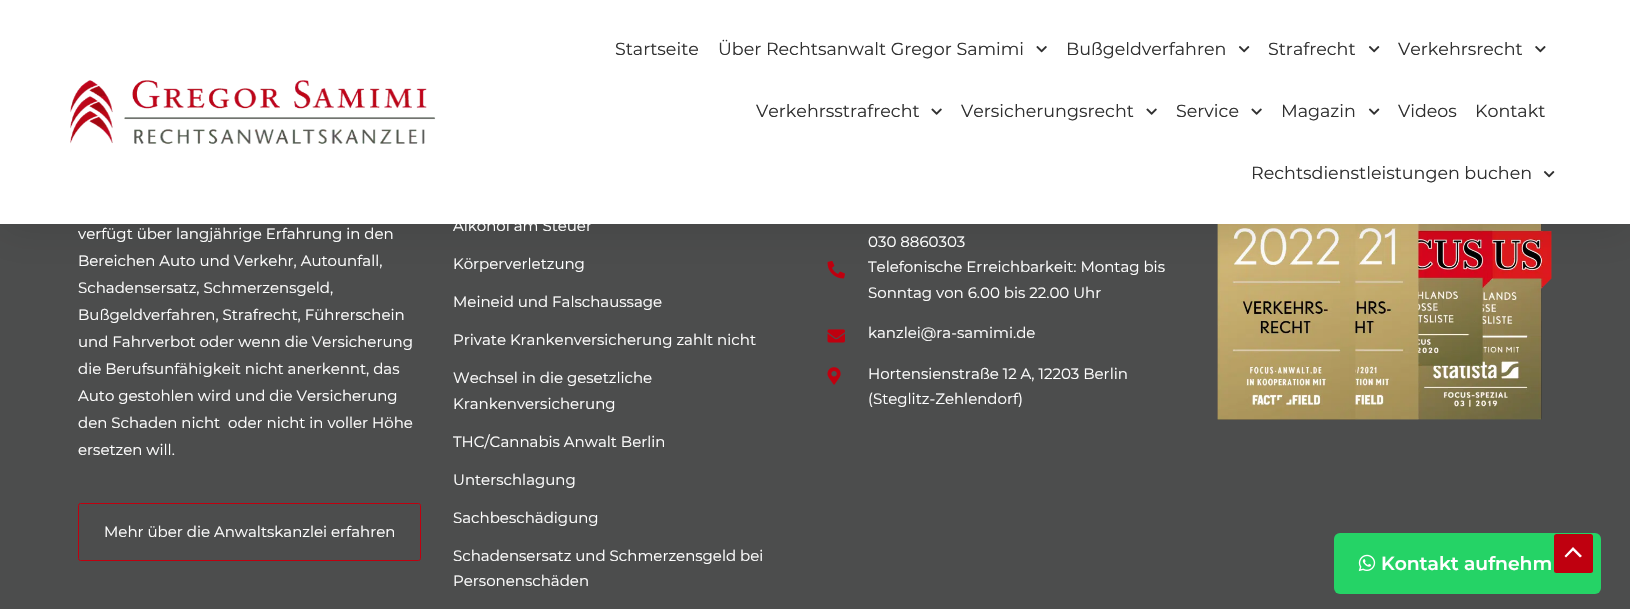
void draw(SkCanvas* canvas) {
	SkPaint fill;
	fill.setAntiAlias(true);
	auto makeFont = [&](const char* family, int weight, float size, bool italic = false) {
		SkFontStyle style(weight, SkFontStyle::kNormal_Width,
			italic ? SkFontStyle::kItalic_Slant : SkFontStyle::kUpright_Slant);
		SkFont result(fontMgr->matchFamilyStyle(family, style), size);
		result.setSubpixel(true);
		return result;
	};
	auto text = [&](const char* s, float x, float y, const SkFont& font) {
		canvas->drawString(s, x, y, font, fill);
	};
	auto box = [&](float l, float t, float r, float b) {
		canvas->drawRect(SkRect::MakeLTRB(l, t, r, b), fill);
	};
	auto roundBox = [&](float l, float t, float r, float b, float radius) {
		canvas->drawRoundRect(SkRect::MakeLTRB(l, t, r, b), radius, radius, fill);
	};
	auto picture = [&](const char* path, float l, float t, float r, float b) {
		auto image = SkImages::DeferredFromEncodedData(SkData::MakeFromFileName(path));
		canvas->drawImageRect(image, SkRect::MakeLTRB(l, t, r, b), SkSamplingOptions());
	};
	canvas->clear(0xFF4C4D4D);
	picture("image6.png", 827, 261, 845, 279);
	picture("image9.png", 1217, 224, 1552, 420);
	fill.setColor(0x1A000000);
	fill.setMaskFilter(SkMaskFilter::MakeBlur(kNormal_SkBlurStyle, 19));
	canvas->drawRect(SkRect::MakeLTRB(0, 6, 1630, 230), fill);
	fill.setMaskFilter(nullptr);
	fill.setColor(0xFFFFFFFF);
	box(0, 0, 1630, 224);
	picture("image0.png", 70, 80, 436, 144);
	picture("image1.png", 1036, 46, 1047, 53);
	picture("image2.png", 1238, 46, 1250, 53);
	picture("image2.png", 1368, 46, 1380, 53);
	picture("image3.png", 1535, 46, 1546, 53);
	picture("image4.png", 931, 108, 942, 115);
	picture("image4.png", 1146, 108, 1157, 115);
	picture("image4.png", 1251, 108, 1262, 115);
	picture("image5.png", 1368, 108, 1380, 115);
	picture("image2.png", 1543, 171, 1555, 178);
	fill.setStyle(SkPaint::kStroke_Style);
	fill.setStrokeWidth(1);
	fill.setColor(0xFFBF000F);
	canvas->drawRoundRect(SkRect::MakeLTRB(78.5f, 503.5f, 420.5f, 560.5f), 2, 2, fill);
	picture("image7.png", 827, 329, 845, 343);
	picture("image8.png", 827, 367, 841, 385);
	fill.setStyle(SkPaint::kFill_Style);
	fill.setColor(0xFF25D366);
	roundBox(1334, 533, 1601, 594, 6);
	picture("image10.png", 1358, 554, 1376, 572);
	fill.setColor(0xFFBF000F);
	roundBox(1554, 534, 1593, 573, 2.5f);
	fill.setColor(0xFFFFFFFF);
	canvas->drawPath(SkPathBuilder().moveTo(1582, 556).lineTo(1573, 547).lineTo(1564.5f, 556).lineTo(1566, 557.5f).lineTo(1573, 550.5f).lineTo(1580, 557.5f).close().detach(), fill);
	auto font1 = makeFont("Montserrat", 100, 17.5f);
	fill.setColor(0xFF303030);
	text("Startseite", 615, 55, font1);
	text("Über Rechtsanwalt Gregor Samimi", 718, 55, font1);
	text("Bußgeldverfahren", 1066, 55, font1);
	text("Strafrecht", 1268, 55, font1);
	text("Verkehrsrecht", 1398, 55, font1);
	text("Verkehrsstrafrecht", 756, 117, font1);
	text("Versicherungsrecht", 961, 117, font1);
	text("Service", 1176, 117, font1);
	text("Magazin", 1281, 117, font1);
	text("Videos", 1398, 117, font1);
	text("Kontakt", 1475, 117, font1);
	text("Rechtsdienstleistungen buchen", 1251, 179, font1);
	auto font2 = makeFont("Montserrat", 100, 15);
	fill.setColor(0xFFFFFFFF);
	text("verfügt über langjährige Erfahrung in den", 78, 239, font2);
	text("Bereichen Auto und Verkehr, Autounfall,", 78, 266, font2);
	text("Schadensersatz, Schmerzensgeld,", 78, 293, font2);
	text("Bußgeldverfahren, Strafrecht, Führerschein", 78, 320, font2);
	text("und Fahrverbot oder wenn die Versicherung", 78, 347, font2);
	text("die Berufsunfähigkeit nicht anerkennt, das", 78, 374, font2);
	text("Auto gestohlen wird und die Versicherung", 78, 401, font2);
	text("den Schaden nicht  oder nicht in voller Höhe", 78, 428, font2);
	text("ersetzen will.", 78, 455, font2);
	text("Mehr über die Anwaltskanzlei erfahren", 104, 537, font2);
	text("Alkohol am Steuer", 453, 231, font2);
	text("Körperverletzung", 453, 269, font2);
	text("Meineid und Falschaussage", 453, 307, font2);
	text("Private Krankenversicherung zahlt nicht", 453, 345, font2);
	text("Wechsel in die gesetzliche", 453, 383, font2);
	text("Krankenversicherung", 453, 409, font2);
	text("THC/Cannabis Anwalt Berlin", 453, 447, font2);
	text("Unterschlagung", 453, 485, font2);
	text("Sachbeschädigung", 453, 523, font2);
	text("Schadensersatz und Schmerzensgeld bei", 453, 561, font2);
	text("Personenschäden", 453, 586, font2);
	text("030 8860303", 868, 247, font2);
	text("Telefonische Erreichbarkeit: Montag bis", 868, 272, font2);
	text("Sonntag von 6.00 bis 22.00 Uhr", 868, 298, font2);
	text("kanzlei@ra-samimi.de", 868, 338, font2);
	text("Hortensienstraße 12 A, 12203 Berlin", 868, 379, font2);
	text("(Steglitz-Zehlendorf)", 868, 404, font2);
	auto font3 = makeFont("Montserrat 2", 100, 18.75f);
	text("Kontakt aufnehm", 1381, 570, font3);
}
